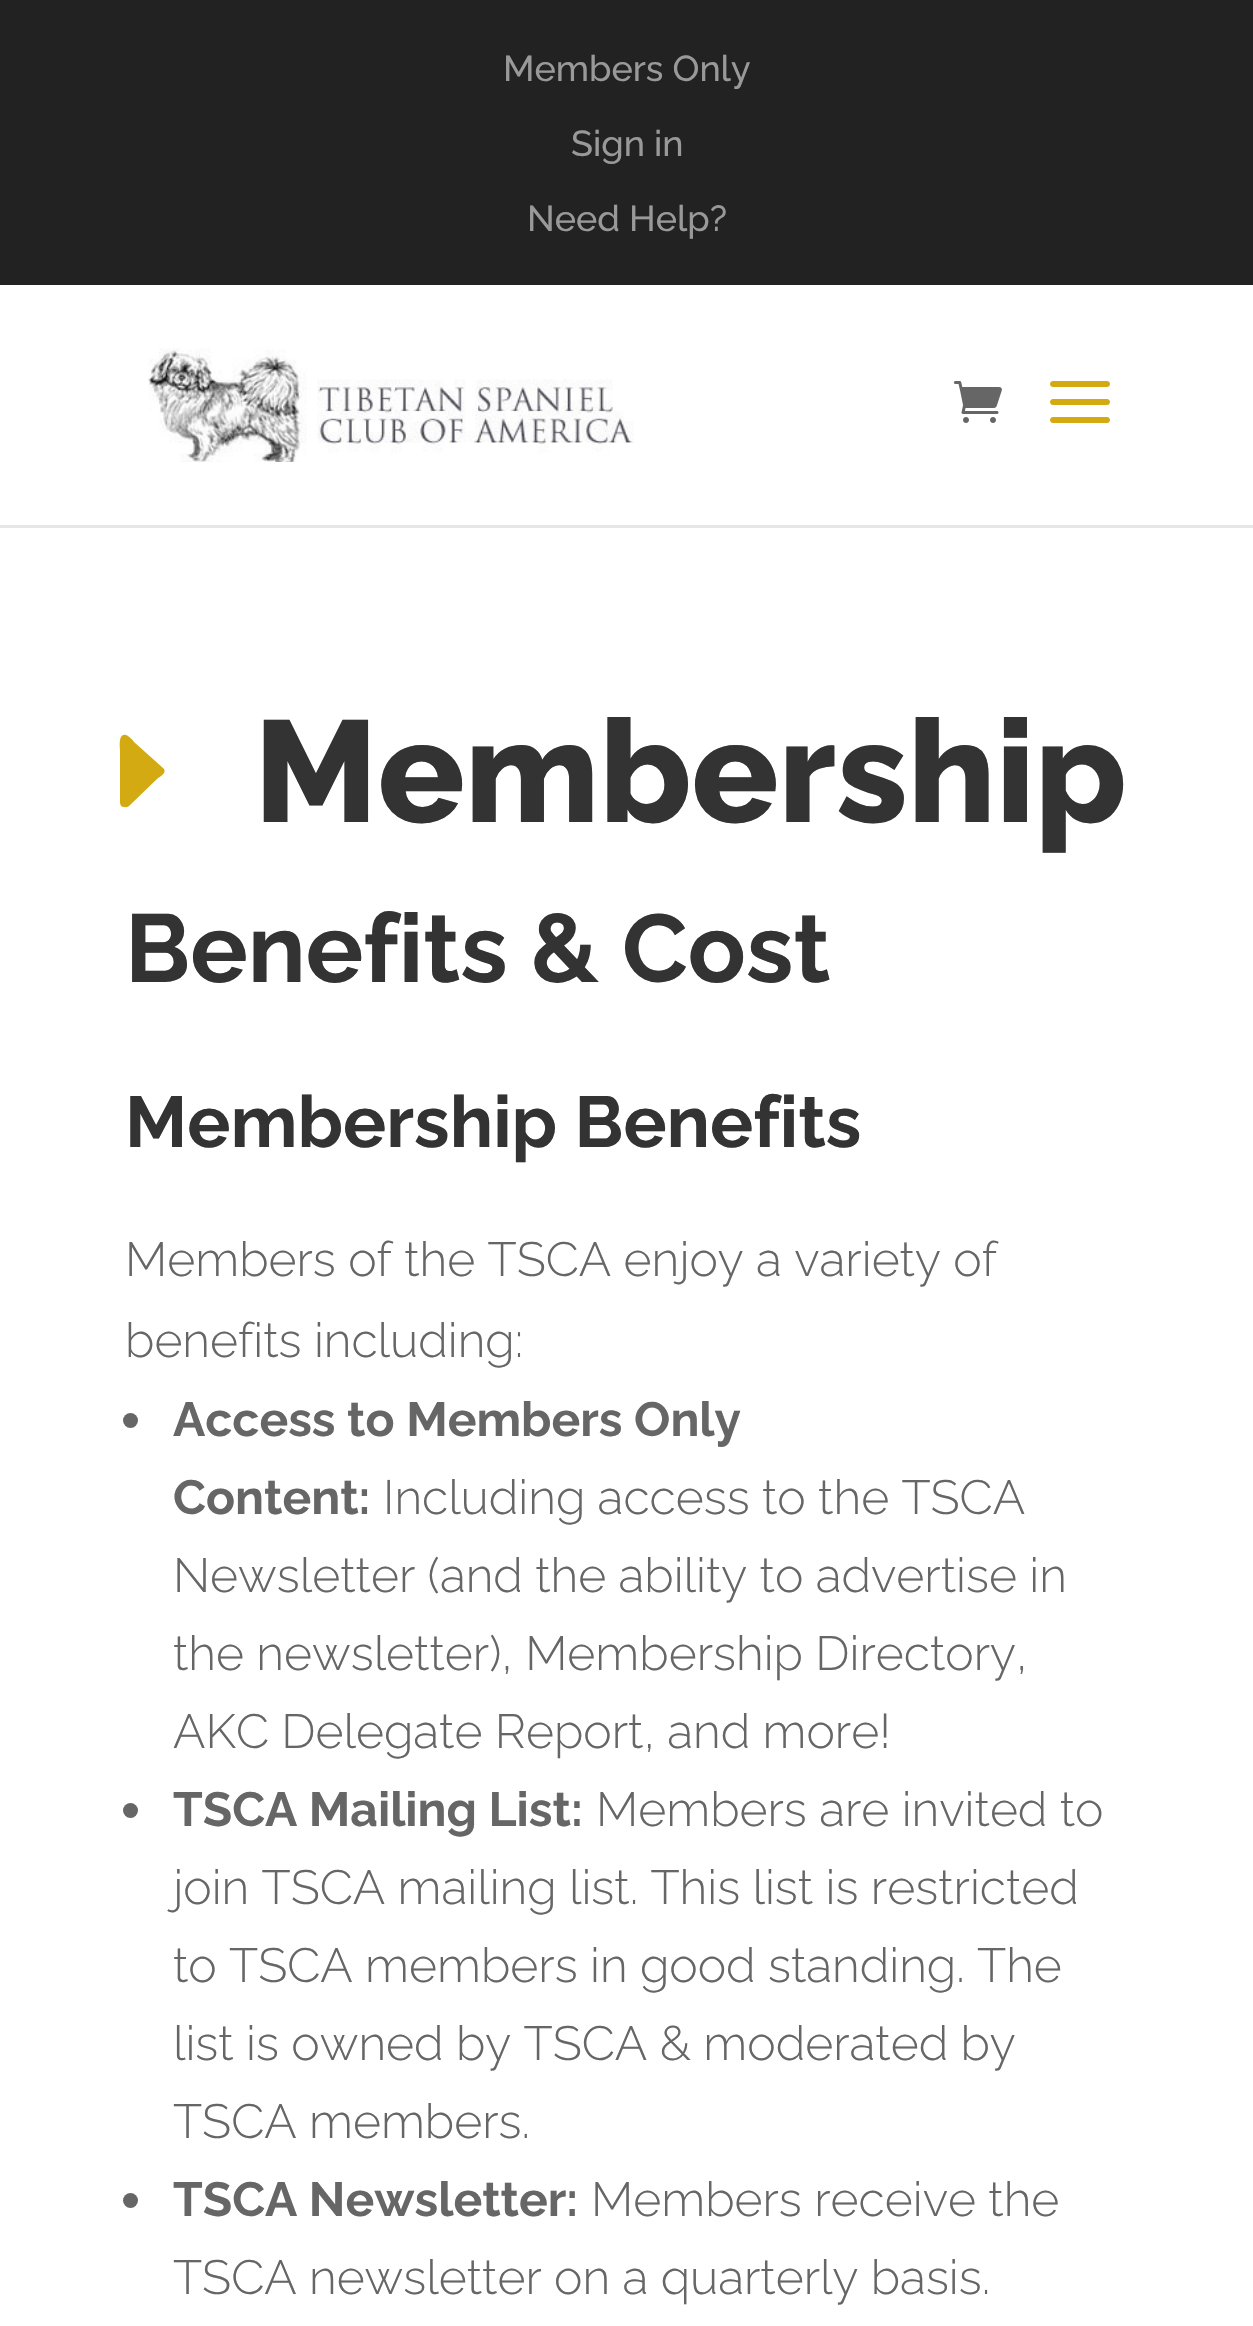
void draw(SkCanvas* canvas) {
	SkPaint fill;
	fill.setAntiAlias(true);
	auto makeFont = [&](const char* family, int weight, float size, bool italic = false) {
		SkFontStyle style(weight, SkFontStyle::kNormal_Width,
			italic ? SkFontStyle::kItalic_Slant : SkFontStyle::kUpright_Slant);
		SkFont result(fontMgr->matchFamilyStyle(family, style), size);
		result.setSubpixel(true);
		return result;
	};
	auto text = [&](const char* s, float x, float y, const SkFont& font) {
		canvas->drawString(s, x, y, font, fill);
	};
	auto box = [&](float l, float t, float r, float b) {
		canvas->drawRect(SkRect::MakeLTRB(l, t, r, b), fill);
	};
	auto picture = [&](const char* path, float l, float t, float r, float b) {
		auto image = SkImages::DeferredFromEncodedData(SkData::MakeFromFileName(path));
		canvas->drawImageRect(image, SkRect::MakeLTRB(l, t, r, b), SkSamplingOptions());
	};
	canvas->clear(0xFFFFFFFF);
	fill.setColor(0xFFE6E6E6);
	box(0, 525, 1253, 528);
	fill.setColor(0xFF222222);
	box(0, 0, 1253, 285);
	picture("image0.png", 148, 348, 634, 462);
	picture("image1.png", 953, 381, 1002, 423);
	picture("image2.png", 1050, 381, 1110, 423);
	fill.setColor(0xFFD3AA11);
	canvas->drawPath(SkPathBuilder().moveTo(129, 806).lineTo(157, 779).cubicTo(160, 777, 168, 772, 163, 768).lineTo(134, 742).cubicTo(133, 740, 129, 736, 126, 735).cubicTo(118, 733, 120, 747, 120, 750).lineTo(120, 803).lineTo(121, 806).cubicTo(123, 807, 126, 808, 129, 806).close().detach(), fill);
	fill.setColor(0xFF666666);
	canvas->drawCircle(130.5f, 1420.5f, 7.5f, fill);
	canvas->drawCircle(130.5f, 1810.5f, 7.5f, fill);
	canvas->drawCircle(130.5f, 2200.5f, 7.5f, fill);
	auto font1 = makeFont("Raleway", 500, 36);
	fill.setColor(0xFF999999);
	text("Members Only", 503, 81, font1);
	text("Sign in", 571, 156, font1);
	text("Need Help?", 527, 231, font1);
	auto font2 = makeFont("Raleway", 800, 144);
	fill.setColor(0xFF333333);
	text("Membership", 254, 822, font2);
	auto font3 = makeFont("Raleway", 700, 96);
	text("Benefits & Cost", 125, 982, font3);
	auto font4 = makeFont("Raleway", 700, 72);
	text("Membership Benefits", 125, 1147, font4);
	auto font5 = makeFont("Raleway", 300, 48);
	fill.setColor(0xFF666666);
	text("Members of the TSCA enjoy a variety of", 125, 1276, font5);
	text("benefits including:", 125, 1357, font5);
	auto font6 = makeFont("Raleway", 700, 48);
	text("Access to Members Only", 173, 1436, font6);
	text("Content:", 173, 1514, font6);
	text("Including access to the TSCA", 383, 1514, font5);
	text("Newsletter (and the ability to advertise in", 173, 1592, font5);
	text("the newsletter), Membership Directory,", 173, 1670, font5);
	text("AKC Delegate Report, and more!", 173, 1748, font5);
	text("TSCA Mailing List:", 173, 1826, font6);
	text("Members are invited to", 596, 1826, font5);
	text("join TSCA mailing list. This list is restricted", 173, 1904, font5);
	text("to TSCA members in good standing. The", 173, 1982, font5);
	text("list is owned by TSCA & moderated by", 173, 2060, font5);
	text("TSCA members.", 173, 2138, font5);
	text("TSCA Newsletter:", 173, 2216, font6);
	text("Members receive the", 591, 2216, font5);
	text("TSCA newsletter on a quarterly basis.", 173, 2294, font5);
}
